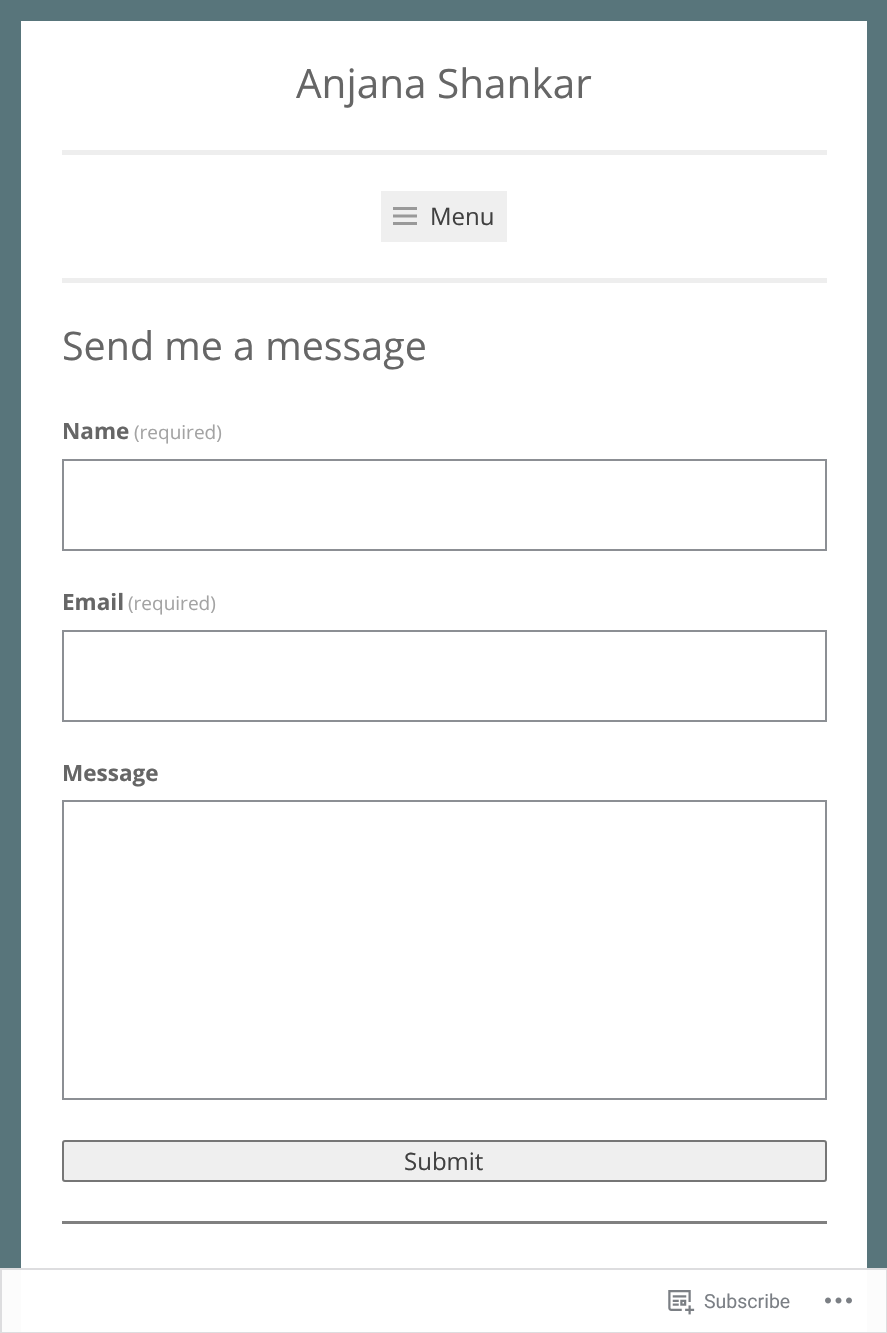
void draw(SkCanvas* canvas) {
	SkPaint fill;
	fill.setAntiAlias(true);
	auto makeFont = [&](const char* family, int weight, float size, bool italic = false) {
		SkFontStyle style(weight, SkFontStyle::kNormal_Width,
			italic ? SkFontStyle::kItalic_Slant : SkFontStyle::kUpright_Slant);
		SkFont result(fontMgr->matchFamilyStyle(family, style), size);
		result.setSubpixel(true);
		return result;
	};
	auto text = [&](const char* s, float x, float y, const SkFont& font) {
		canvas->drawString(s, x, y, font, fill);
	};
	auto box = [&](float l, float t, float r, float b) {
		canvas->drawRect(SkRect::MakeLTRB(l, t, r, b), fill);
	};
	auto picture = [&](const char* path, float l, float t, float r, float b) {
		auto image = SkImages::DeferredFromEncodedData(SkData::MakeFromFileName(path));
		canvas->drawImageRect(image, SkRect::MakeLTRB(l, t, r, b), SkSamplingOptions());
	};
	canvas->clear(0xFF58757B);
	fill.setColor(0xFFFCFCFC);
	box(0, 1268, 887, 1333);
	fill.setColor(0xFFFFFFFF);
	box(21, 21, 867, 1333);
	fill.setColor(0xFFEEEEEE);
	box(62, 278, 827, 283);
	box(62, 150, 827, 155);
	fill.setColor(0xFFEFEFEF);
	box(381, 191, 507, 242);
	picture("image0.png", 393, 207, 417, 225);
	fill.setStyle(SkPaint::kStroke_Style);
	fill.setStrokeWidth(2);
	fill.setColor(0xFF8C8F94);
	canvas->drawRect(SkRect::MakeLTRB(63, 460, 826, 550), fill);
	canvas->drawRect(SkRect::MakeLTRB(63, 631, 826, 721), fill);
	canvas->drawRect(SkRect::MakeLTRB(63, 801, 826, 1099), fill);
	fill.setStyle(SkPaint::kFill_Style);
	fill.setColor(0xFFEFEFEF);
	canvas->drawRoundRect(SkRect::MakeLTRB(63, 1141, 826, 1181), 2, 2, fill);
	fill.setStyle(SkPaint::kStroke_Style);
	fill.setColor(0xFF767676);
	canvas->drawRoundRect(SkRect::MakeLTRB(63, 1141, 826, 1181), 2, 2, fill);
	fill.setStyle(SkPaint::kFill_Style);
	fill.setColor(0xFF808080);
	box(62, 1221, 827, 1224);
	fill.setStyle(SkPaint::kStroke_Style);
	fill.setColor(0xFADCDCDE);
	canvas->drawRect(SkRect::MakeLTRB(1, 1269, 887, 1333), fill);
	picture("image1.png", 668, 1290, 695, 1315);
	picture("image2.png", 825, 1297, 852, 1304);
	auto font1 = makeFont("Open Sans", 400, 40.5f);
	fill.setStyle(SkPaint::kFill_Style);
	fill.setColor(0xFF666666);
	text("Anjana Shankar", 296, 98, font1);
	auto font2 = makeFont("Open Sans", 400, 24);
	fill.setColor(0xFF404040);
	text("Menu", 430, 225, font2);
	auto font3 = makeFont("Open Sans", 400, 39.4f);
	fill.setColor(0xFF666666);
	text("Send me a message", 62, 360, font3);
	auto font4 = makeFont("Open Sans", 700, 22.5f);
	text("Name", 62, 439, font4);
	auto font5 = makeFont("Open Sans", 400, 19);
	fill.setColor(0xFFA3A3A3);
	text("(required)", 134, 439, font5);
	fill.setColor(0xFF666666);
	text("Email", 62, 610, font4);
	fill.setColor(0xFFA3A3A3);
	text("(required)", 128, 610, font5);
	fill.setColor(0xFF666666);
	text("Message", 62, 781, font4);
	fill.setColor(0xFF404040);
	text("Submit", 404, 1170, font2);
	auto font6 = makeFont("Roboto", 400, 19.5f);
	fill.setColor(0xFF7B7F85);
	text("Subscribe", 704, 1308, font6);
}
